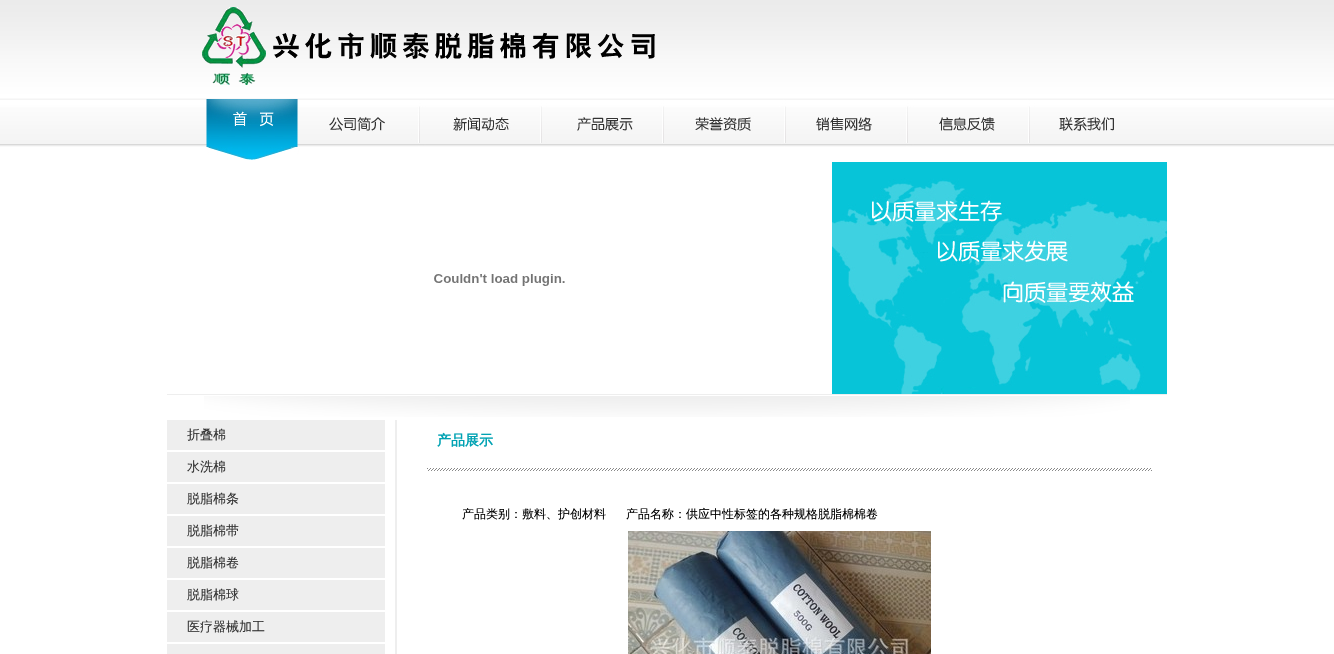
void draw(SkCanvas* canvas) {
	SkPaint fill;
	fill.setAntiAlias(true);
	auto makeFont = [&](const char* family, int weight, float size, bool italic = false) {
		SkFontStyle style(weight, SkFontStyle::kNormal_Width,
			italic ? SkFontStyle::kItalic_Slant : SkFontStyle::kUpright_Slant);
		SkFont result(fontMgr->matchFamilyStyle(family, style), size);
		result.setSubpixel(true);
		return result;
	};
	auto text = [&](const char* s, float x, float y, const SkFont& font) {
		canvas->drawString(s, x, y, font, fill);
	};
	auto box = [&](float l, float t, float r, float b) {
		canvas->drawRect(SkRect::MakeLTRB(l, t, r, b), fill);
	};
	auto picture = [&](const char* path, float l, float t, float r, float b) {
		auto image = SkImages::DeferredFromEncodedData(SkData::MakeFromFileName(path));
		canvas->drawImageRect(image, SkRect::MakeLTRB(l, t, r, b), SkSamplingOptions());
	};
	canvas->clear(0xFFFFFFFF);
	picture("image0.png", 0, 0, 1334, 147);
	picture("image1.png", 202, 7, 655, 85);
	picture("image2.png", 206, 99, 1114, 160);
	picture("image3.png", 434, 274, 565, 286);
	picture("image4.png", 832, 162, 1167, 394);
	picture("image5.png", 204, 396, 1130, 417);
	fill.setColor(0xFFEEEEEE);
	box(167, 394, 1167, 395);
	box(167, 420, 385, 450);
	box(167, 452, 385, 482);
	box(167, 484, 385, 514);
	box(167, 516, 385, 546);
	box(167, 548, 385, 578);
	box(167, 580, 385, 610);
	box(167, 612, 385, 642);
	box(167, 644, 385, 654);
	box(395, 420, 397, 654);
	picture("image6.png", 427, 468, 1152, 471);
	picture("image7.png", 628, 531, 931, 654);
	auto font1 = makeFont("WenQuanYi Zen Hei", 500, 13);
	fill.setColor(0xFF333333);
	text("折叠棉", 187, 439, font1);
	text("水洗棉", 187, 471, font1);
	text("脱脂棉条", 187, 503, font1);
	text("脱脂棉带", 187, 535, font1);
	text("脱脂棉卷", 187, 567, font1);
	text("脱脂棉球", 187, 599, font1);
	text("医疗器械加工", 187, 631, font1);
	auto font2 = makeFont("WenQuanYi Zen Hei", 700, 14);
	fill.setColor(0xFF00A2B3);
	text("产品展示", 437, 445, font2);
	auto font3 = makeFont("WenQuanYi Zen Hei", 500, 12);
	fill.setColor(0xFF000000);
	text("产品类别：敷料、护创材料", 462, 518, font3);
	text("产品名称：供应中性标签的各种规格脱脂棉棉卷", 626, 518, font3);
}
